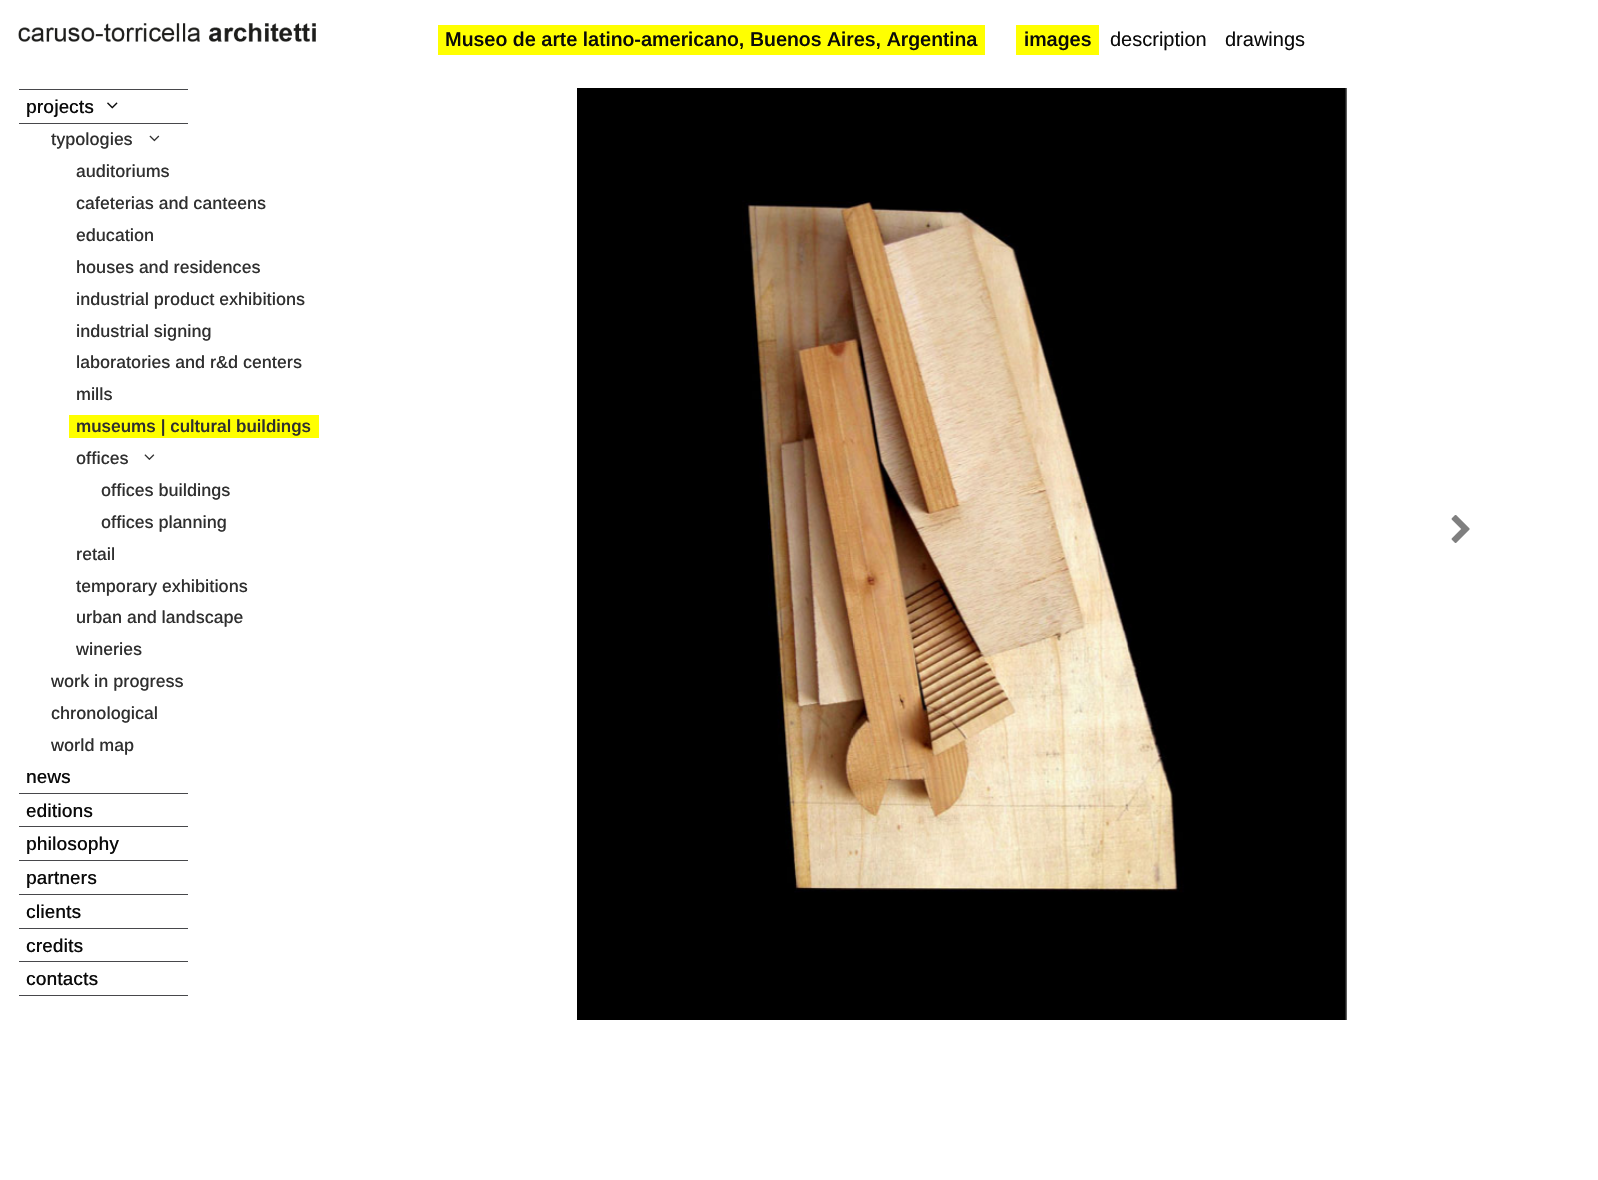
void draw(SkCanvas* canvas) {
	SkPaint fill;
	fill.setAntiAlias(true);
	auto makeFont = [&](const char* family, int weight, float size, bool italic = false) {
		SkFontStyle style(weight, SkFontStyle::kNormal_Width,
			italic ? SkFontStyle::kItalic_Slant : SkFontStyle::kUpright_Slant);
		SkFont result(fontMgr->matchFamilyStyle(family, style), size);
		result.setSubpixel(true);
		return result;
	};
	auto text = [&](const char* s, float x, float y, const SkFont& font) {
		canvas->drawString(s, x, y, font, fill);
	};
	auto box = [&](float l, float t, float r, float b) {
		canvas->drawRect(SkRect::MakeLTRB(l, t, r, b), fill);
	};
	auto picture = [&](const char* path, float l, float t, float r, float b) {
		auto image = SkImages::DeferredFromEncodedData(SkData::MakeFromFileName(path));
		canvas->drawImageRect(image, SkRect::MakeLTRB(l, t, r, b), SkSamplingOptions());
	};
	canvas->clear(0xFFFFFFFF);
	fill.setColor(0xFFFFFF00);
	box(438, 25, 985, 55);
	box(1016, 25, 1099, 55);
	picture("image0.png", 577, 88, 1347, 1020);
	picture("image1.png", 1451, 515, 1470, 543);
	picture("image2.png", 18, 23, 316, 42);
	fill.setColor(0xFF47484B);
	box(19, 89, 188, 90);
	box(19, 123, 188, 124);
	picture("image3.png", 107, 102, 118, 109);
	picture("image4.png", 149, 135, 160, 142);
	fill.setColor(0xFFFFFF00);
	box(69, 415, 319, 438);
	picture("image5.png", 144, 454, 155, 460);
	fill.setColor(0xFF47484B);
	box(19, 793, 188, 794);
	box(19, 826, 188, 827);
	box(19, 860, 188, 861);
	box(19, 894, 188, 895);
	box(19, 928, 188, 929);
	box(19, 961, 188, 962);
	box(19, 995, 188, 996);
	auto font1 = makeFont("Arimo", 600, 20);
	fill.setColor(0xFF0A0A0A);
	text("Museo de arte latino-americano, Buenos Aires, Argentina", 445, 46, font1);
	text("images", 1024, 46, font1);
	auto font2 = makeFont("Arimo", 400, 20);
	text("description", 1110, 46, font2);
	text("drawings", 1225, 46, font2);
	auto font3 = makeFont("Arimo", 500, 18.75f);
	text("projects", 26, 113, font3);
	auto font4 = makeFont("Arimo", 500, 17.5f);
	fill.setColor(0xFF2F2F2F);
	text("typologies", 51, 145, font4);
	text("auditoriums", 76, 177, font4);
	text("cafeterias and canteens", 76, 209, font4);
	text("education", 76, 241, font4);
	text("houses and residences", 76, 273, font4);
	text("industrial product exhibitions", 76, 305, font4);
	text("industrial signing", 76, 337, font4);
	text("laboratories and r&d centers", 76, 368, font4);
	text("mills", 76, 400, font4);
	auto font5 = makeFont("Arimo", 600, 17.5f);
	text("museums | cultural buildings", 76, 432, font5);
	text("offices", 76, 464, font4);
	text("offices buildings", 101, 496, font4);
	text("offices planning", 101, 528, font4);
	text("retail", 76, 560, font4);
	text("temporary exhibitions", 76, 592, font4);
	text("urban and landscape", 76, 623, font4);
	text("wineries", 76, 655, font4);
	text("work in progress", 51, 687, font4);
	text("chronological", 51, 719, font4);
	text("world map", 51, 751, font4);
	fill.setColor(0xFF0A0A0A);
	text("news", 26, 783, font3);
	text("editions", 26, 817, font3);
	text("philosophy", 26, 850, font3);
	text("partners", 26, 884, font3);
	text("clients", 26, 918, font3);
	text("credits", 26, 952, font3);
	text("contacts", 26, 985, font3);
}
